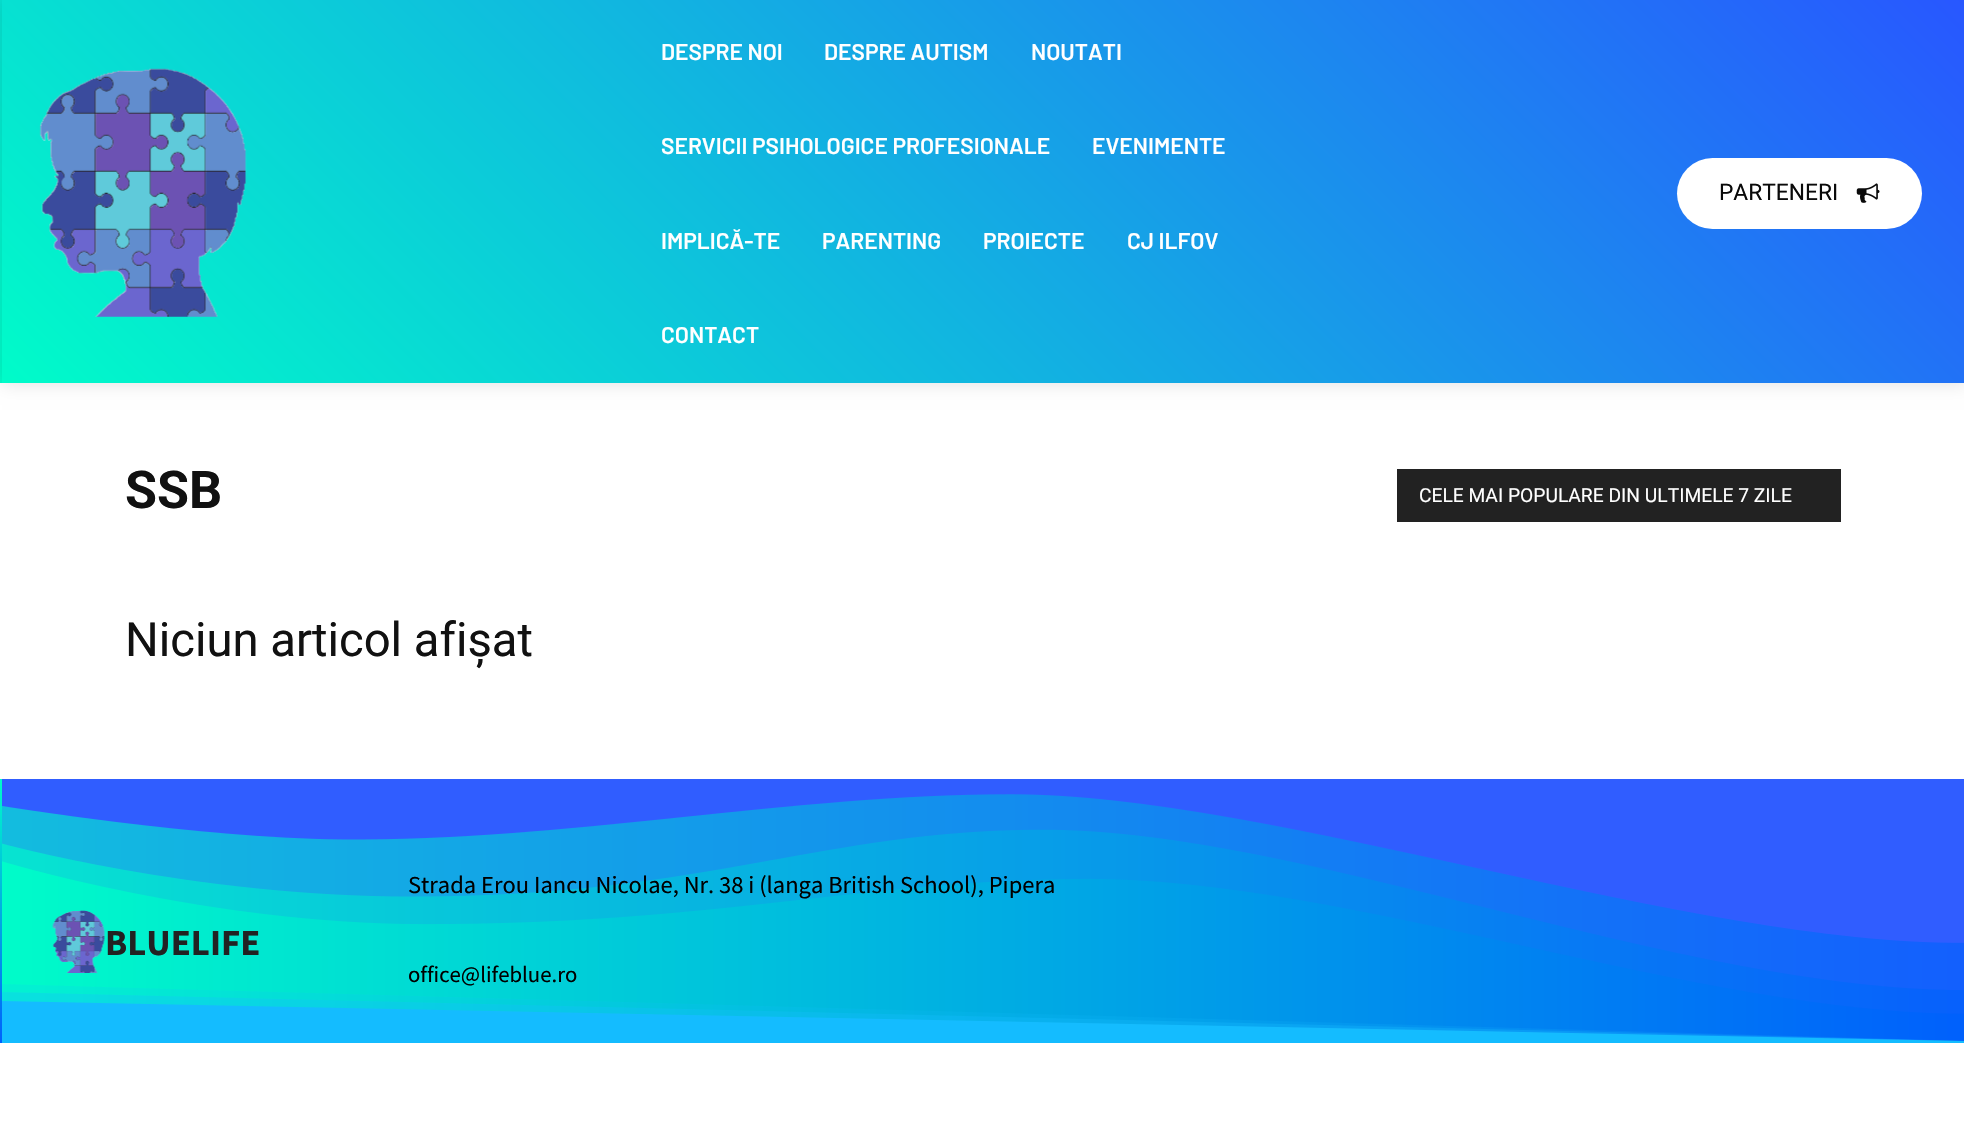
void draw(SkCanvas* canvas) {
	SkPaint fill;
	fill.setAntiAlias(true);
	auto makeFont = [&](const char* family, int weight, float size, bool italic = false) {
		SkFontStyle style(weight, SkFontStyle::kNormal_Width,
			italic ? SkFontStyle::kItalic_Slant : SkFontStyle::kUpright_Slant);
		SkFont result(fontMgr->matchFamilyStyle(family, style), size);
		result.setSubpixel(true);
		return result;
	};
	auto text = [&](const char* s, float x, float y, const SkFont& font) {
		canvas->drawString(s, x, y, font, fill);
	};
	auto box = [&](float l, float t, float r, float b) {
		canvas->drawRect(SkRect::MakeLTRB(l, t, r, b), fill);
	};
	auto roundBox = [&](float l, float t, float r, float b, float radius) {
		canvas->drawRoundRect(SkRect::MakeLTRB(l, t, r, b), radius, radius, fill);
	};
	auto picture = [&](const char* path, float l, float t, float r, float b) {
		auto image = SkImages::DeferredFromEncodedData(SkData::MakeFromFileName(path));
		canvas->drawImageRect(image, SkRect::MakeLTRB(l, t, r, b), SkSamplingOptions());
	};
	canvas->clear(0xFFFFFFFF);
	{
		const SkColor colors[] = {0xFF00FCC9, 0xFF2857FF};
		const float stops[] = {0, 1};
		const SkPoint ends[] = {{396, 779}, {1570, -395}};
		fill.setShader(SkGradientShader::MakeLinear(ends, colors, stops, 2, SkTileMode::kClamp));
		fill.setAlpha(255);
	}
	box(0, 0, 1964, 383);
	picture("image0.png", 39, 68, 247, 317);
	fill.setShader(nullptr);
	fill.setColor(0xFFFFFFFF);
	roundBox(1677, 158, 1922, 229, 35.5f);
	picture("image1.png", 1856, 183, 1880, 203);
	canvas->save();
	canvas->clipPath(SkPathBuilder(SkPathFillType::kEvenOdd).moveTo(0, 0).lineTo(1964, 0).lineTo(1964, 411).lineTo(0, 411).close().moveTo(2, 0).lineTo(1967, 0).lineTo(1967, 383).lineTo(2, 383).close().detach(), true);
	fill.setColor(0x1F000000);
	fill.setMaskFilter(SkMaskFilter::MakeBlur(kNormal_SkBlurStyle, 9));
	canvas->drawRect(SkRect::MakeLTRB(2, 0, 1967, 383), fill);
	fill.setMaskFilter(nullptr);
	canvas->restore();
	fill.setColor(0xFF222222);
	box(1397, 469, 1841, 522);
	{
		const SkColor colors[] = {0xFF00FCC9, 0xFF0060FC};
		const float stops[] = {0, 1};
		const SkPoint ends[] = {{983, 779}, {983, 1043}};
		fill.setShader(SkGradientShader::MakeLinear(ends, colors, stops, 2, SkTileMode::kClamp));
		fill.setAlpha(255);
	}
	box(0, 779, 2, 1043);
	{
		const SkColor colors[] = {0xFF00FCC9, 0xFF0060FC};
		const float stops[] = {0, 1};
		const SkPoint ends[] = {{0.9f, 911}, {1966, 911}};
		fill.setShader(SkGradientShader::MakeLinear(ends, colors, stops, 2, SkTileMode::kClamp));
		fill.setAlpha(255);
	}
	box(2, 794, 1964, 1041);
	picture("image2.png", 2, 779, 1964, 1014);
	canvas->save();
	canvas->clipRect(SkRect::MakeLTRB(2, 956, 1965, 1043));
	fill.setShader(nullptr);
	fill.setColor(0xFF14BCFF);
	canvas->drawPath(SkPathBuilder().moveTo(0, 1109).lineTo(0, 1001).lineTo(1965, 1041).lineTo(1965, 1109).close().detach(), fill);
	fill.setColor(0x4D14BCFF);
	canvas->drawPath(SkPathBuilder().moveTo(0, 1109).lineTo(0, 992).lineTo(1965, 1041).lineTo(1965, 1109).close().detach(), fill);
	fill.setColor(0x2614BCFF);
	canvas->drawPath(SkPathBuilder().moveTo(0, 1109).lineTo(0, 984).lineTo(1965, 1041).lineTo(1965, 1109).close().detach(), fill);
	canvas->restore();
	picture("image3.png", 52, 910, 105, 973);
	auto font1 = makeFont("Barlow", 600, 22.75f);
	fill.setColor(0xFFFFFFFF);
	text("DESPRE NOI", 661, 60, font1);
	text("DESPRE AUTISM", 824, 60, font1);
	text("NOUTATI", 1031, 60, font1);
	text("SERVICII PSIHOLOGICE PROFESIONALE", 661, 154, font1);
	text("EVENIMENTE", 1092, 154, font1);
	text("IMPLICĂ-TE", 661, 249, font1);
	text("PARENTING", 822, 249, font1);
	text("PROIECTE", 983, 249, font1);
	text("CJ ILFOV", 1127, 249, font1);
	text("CONTACT", 661, 343, font1);
	auto font2 = makeFont("Roboto", 400, 22.75f);
	fill.setColor(0xFF0A0A0A);
	text("PARTENERI", 1719, 200, font2);
	auto font3 = makeFont("Roboto", 700, 52);
	fill.setColor(0xFF111111);
	text("SSB", 125, 508, font3);
	auto font4 = makeFont("Roboto", 400, 19.25f);
	fill.setColor(0xFFFFFFFF);
	text("CELE MAI POPULARE DIN ULTIMELE 7 ZILE", 1419, 502, font4);
	auto font5 = makeFont("Roboto", 400, 47.25f);
	fill.setColor(0xFF111111);
	text("Niciun articol afișat", 125, 656, font5);
	auto font6 = makeFont("Source Sans Pro", 700, 36.75f);
	fill.setColor(0xFF222222);
	text("BLUELIFE", 105, 955, font6);
	auto font7 = makeFont("Source Sans Pro", 400, 24.5f);
	fill.setColor(0xFF000000);
	text("Strada Erou Iancu Nicolae, Nr. 38 i (langa British School), Pipera", 408, 893, font7);
	auto font8 = makeFont("Source Sans Pro", 400, 22.75f);
	text("office@lifeblue.ro", 408, 982, font8);
}
